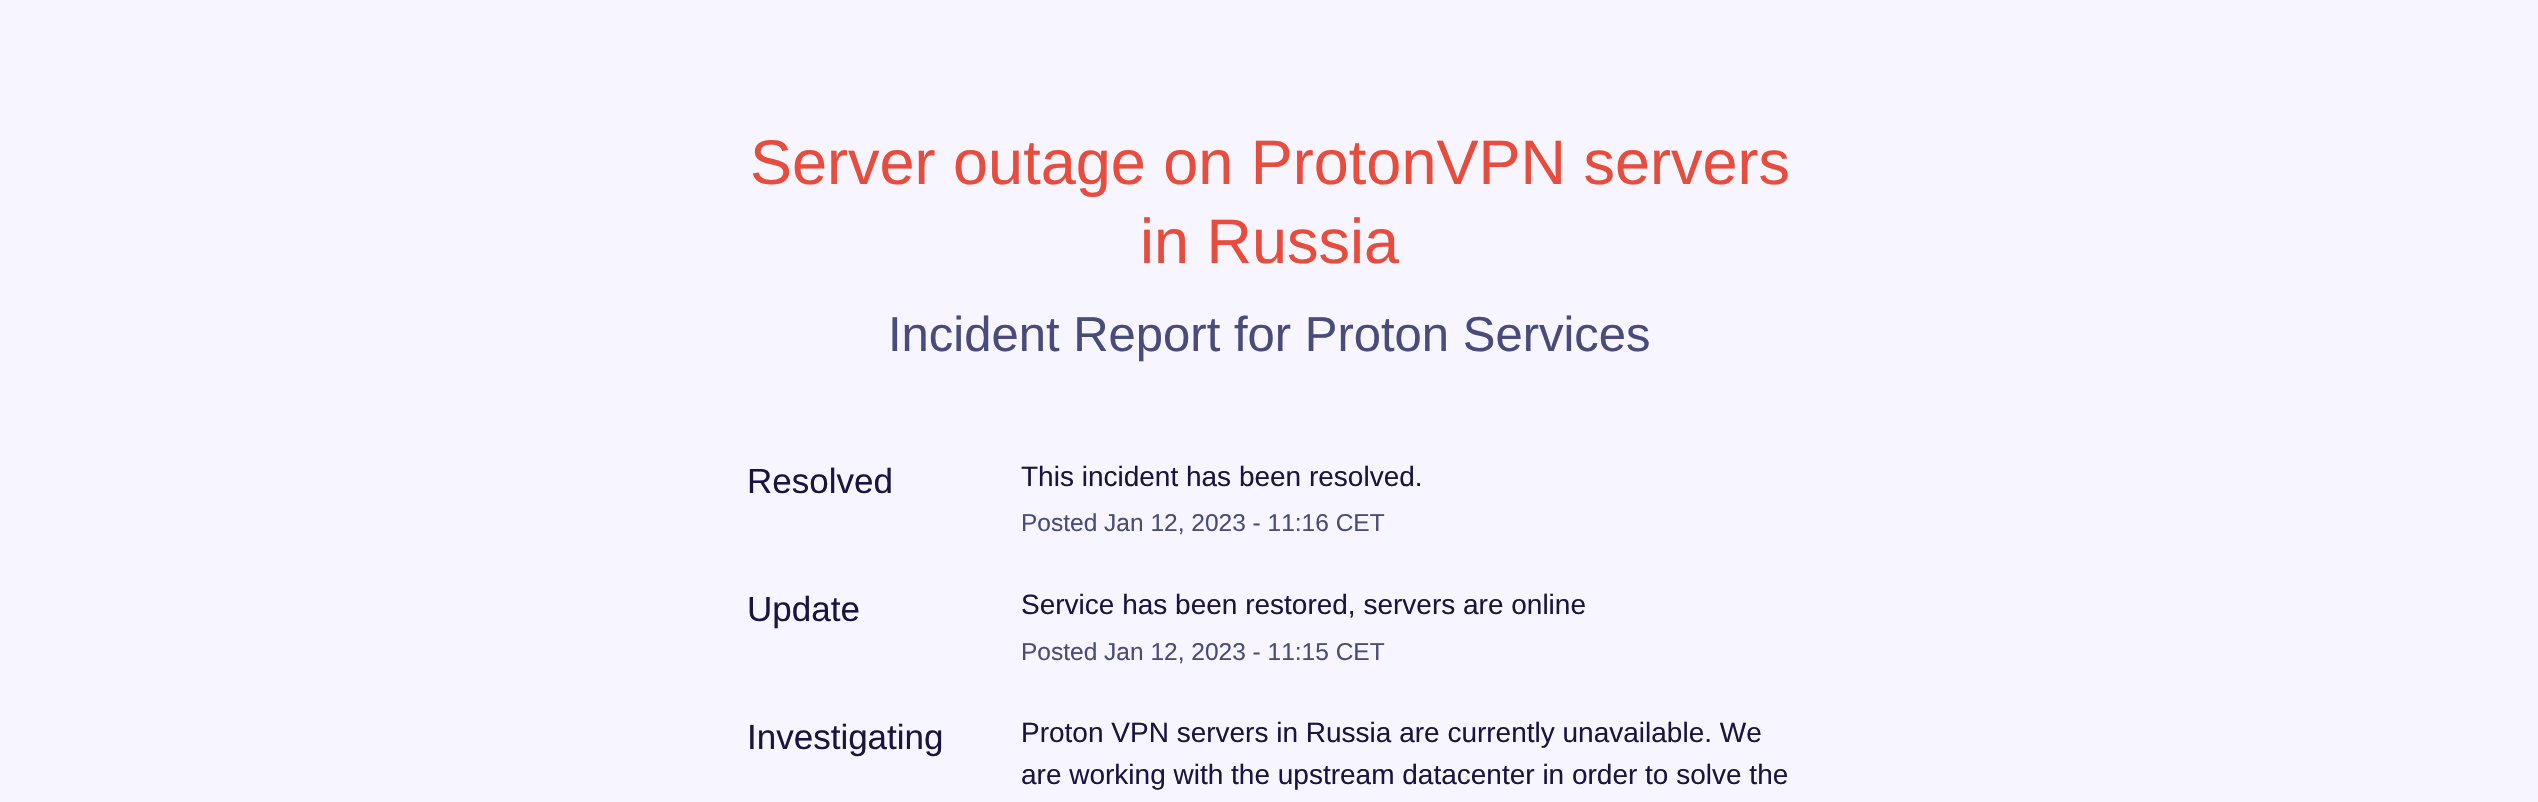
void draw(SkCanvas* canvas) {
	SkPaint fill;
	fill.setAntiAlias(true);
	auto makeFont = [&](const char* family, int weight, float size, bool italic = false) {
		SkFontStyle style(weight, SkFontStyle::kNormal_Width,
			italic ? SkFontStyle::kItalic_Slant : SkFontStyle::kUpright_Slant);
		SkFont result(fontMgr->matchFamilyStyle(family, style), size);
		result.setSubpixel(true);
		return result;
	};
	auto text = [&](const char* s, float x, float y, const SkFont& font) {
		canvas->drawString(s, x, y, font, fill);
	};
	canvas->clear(0xFFF7F5FF);
	auto font1 = makeFont("Liberation Sans", 400, 63);
	fill.setColor(0xFFE74C3C);
	text("Server outage on ProtonVPN servers", 750, 184, font1);
	text("in Russia", 1140, 263, font1);
	auto font2 = makeFont("Liberation Sans", 400, 49);
	fill.setColor(0xFF494B7A);
	text("Incident Report for Proton Services", 888, 351, font2);
	auto font3 = makeFont("Liberation Sans", 400, 35);
	fill.setColor(0xFF1B1340);
	text("Resolved", 747, 493, font3);
	auto font4 = makeFont("Liberation Sans", 400, 28);
	text("This incident has been resolved.", 1021, 486, font4);
	auto font5 = makeFont("Liberation Sans", 400, 24.5f);
	fill.setColor(0xFF494B7A);
	text("Posted Jan 12, 2023 - 11:16 CET", 1021, 531, font5);
	fill.setColor(0xFF1B1340);
	text("Update", 747, 621, font3);
	text("Service has been restored, servers are online", 1021, 614, font4);
	fill.setColor(0xFF494B7A);
	text("Posted Jan 12, 2023 - 11:15 CET", 1021, 660, font5);
	fill.setColor(0xFF1B1340);
	text("Investigating", 747, 749, font3);
	text("Proton VPN servers in Russia are currently unavailable. We", 1021, 742, font4);
	text("are working with the upstream datacenter in order to solve the", 1021, 784, font4);
}
